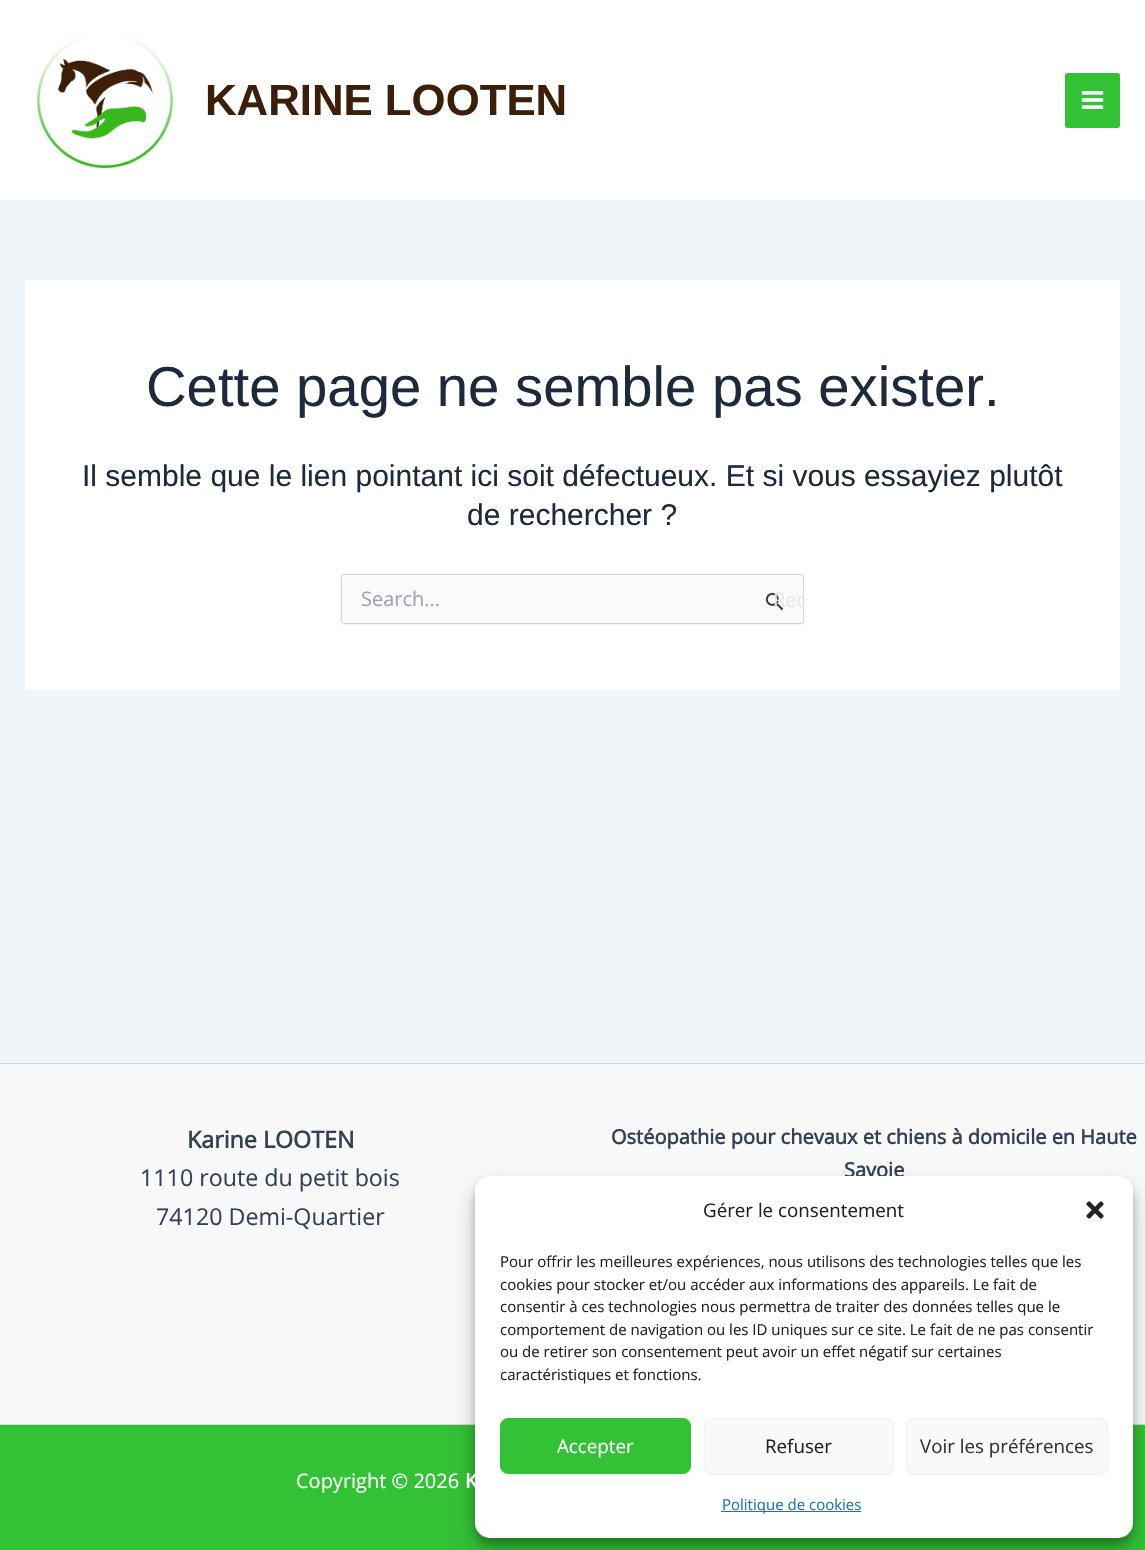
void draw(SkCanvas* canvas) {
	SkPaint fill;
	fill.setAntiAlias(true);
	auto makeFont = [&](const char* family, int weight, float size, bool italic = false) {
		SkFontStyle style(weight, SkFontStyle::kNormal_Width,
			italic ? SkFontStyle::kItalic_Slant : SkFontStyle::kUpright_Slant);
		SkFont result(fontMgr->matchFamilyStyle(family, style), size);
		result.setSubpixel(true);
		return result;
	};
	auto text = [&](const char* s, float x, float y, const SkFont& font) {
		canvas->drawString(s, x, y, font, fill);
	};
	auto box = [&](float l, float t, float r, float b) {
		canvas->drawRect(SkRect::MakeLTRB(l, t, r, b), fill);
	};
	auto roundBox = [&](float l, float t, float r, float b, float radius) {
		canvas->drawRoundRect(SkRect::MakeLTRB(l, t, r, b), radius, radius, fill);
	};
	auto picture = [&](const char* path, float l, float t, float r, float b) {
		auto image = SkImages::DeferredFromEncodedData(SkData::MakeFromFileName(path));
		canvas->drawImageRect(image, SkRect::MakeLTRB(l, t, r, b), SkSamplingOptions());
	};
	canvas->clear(0xFFF0F5FA);
	fill.setColor(0xFFFFFFFF);
	box(0, 0, 1145, 200);
	picture("image0.png", 37, 36, 174, 169);
	fill.setColor(0xFF33C136);
	roundBox(1065, 73, 1120, 128, 2.5f);
	picture("image1.png", 1081, 91, 1104, 109);
	fill.setColor(0xFFFFFFFF);
	box(25, 280, 1120, 690);
	fill.setColor(0x0D000000);
	fill.setMaskFilter(SkMaskFilter::MakeBlur(kNormal_SkBlurStyle, 1));
	canvas->drawRoundRect(SkRect::MakeLTRB(341, 575, 804, 625), 2.5f, 2.5f, fill);
	fill.setMaskFilter(nullptr);
	fill.setColor(0xFFFAFAFA);
	canvas->drawRoundRect(SkRect::MakeLTRB(341.5f, 574.5f, 803.5f, 623.5f), 2, 2, fill);
	fill.setStyle(SkPaint::kStroke_Style);
	fill.setStrokeWidth(1);
	fill.setColor(0xFFD1D5DB);
	canvas->drawRoundRect(SkRect::MakeLTRB(341.5f, 574.5f, 803.5f, 623.5f), 2, 2, fill);
	picture("image2.png", 765, 592, 783, 611);
	fill.setStyle(SkPaint::kFill_Style);
	fill.setColor(0xFFF9F9F9);
	box(0, 1064, 1145, 1424);
	fill.setColor(0xFFD1D5DB);
	box(0, 1063, 1145, 1064);
	fill.setColor(0xFF33C136);
	box(0, 1425, 1145, 1550);
	fill.setColor(0xFFD1D5DB);
	box(0, 1424, 1145, 1425);
	fill.setColor(0x3B000000);
	fill.setMaskFilter(SkMaskFilter::MakeBlur(kNormal_SkBlurStyle, 4));
	canvas->drawRoundRect(SkRect::MakeLTRB(475, 1184, 1133, 1545), 15, 15, fill);
	fill.setMaskFilter(nullptr);
	fill.setColor(0x30000000);
	fill.setMaskFilter(SkMaskFilter::MakeBlur(kNormal_SkBlurStyle, 12.5f));
	canvas->drawRoundRect(SkRect::MakeLTRB(475, 1189, 1133, 1550), 15, 15, fill);
	fill.setMaskFilter(nullptr);
	auto font1 = makeFont("Liberation Sans", 700, 43.75f);
	fill.setColor(0xFF3C1F09);
	text("KARINE LOOTEN", 205, 115, font1);
	auto font2 = makeFont("Liberation Sans", 400, 56.25f);
	fill.setColor(0xFF1E293B);
	text("Cette page ne semble pas exister.", 146, 406, font2);
	auto font3 = makeFont("Liberation Sans", 400, 30);
	text("Il semble que le lien pointant ici soit défectueux. Et si vous essayiez plutôt", 82, 486, font3);
	text("de rechercher ?", 467, 525, font3);
	auto font4 = makeFont("Open Sans", 400, 20);
	fill.setColor(0xFF9CA3AF);
	text("Search...", 361, 606, font4);
	canvas->save();
	canvas->clipPath(SkPathBuilder().moveTo(750.5f, 574).lineTo(801.5f, 574).cubicTo(803, 574, 804, 575, 804, 576.5f).lineTo(804, 623.5f).cubicTo(804, 625, 803, 626, 801.5f, 626).lineTo(750.5f, 626).cubicTo(749, 626, 748, 625, 748, 623.5f).lineTo(748, 576.5f).cubicTo(748, 575, 749, 574, 750.5f, 574).close().detach(), true);
	fill.setColor(0xFFE7E7E7);
	text("Rec", 773, 607, font4);
	canvas->restore();
	auto font5 = makeFont("Open Sans", 700, 23.25f);
	fill.setColor(0xFF334155);
	text("Karine LOOTEN", 187, 1148, font5);
	auto font6 = makeFont("Open Sans", 400, 23.25f);
	text("1110 route du petit bois", 140, 1186, font6);
	text("74120 Demi-Quartier", 156, 1225, font6);
	auto font7 = makeFont("Open Sans", 700, 20);
	text("Ostéopathie pour chevaux et chiens à domicile en Haute", 611, 1144, font7);
	text("Savoie", 844, 1177, font7);
	fill.setColor(0xFFFFFFFF);
	text("Copyright © 2026", 296, 1488, font4);
	text("K", 465, 1488, font7);
	roundBox(475, 1176, 1133, 1538, 15);
	auto font8 = makeFont("Open Sans", 400, 18.75f);
	fill.setColor(0xFF222222);
	text("Gérer le consentement", 703, 1217, font8);
	picture("image3.png", 1086, 1201, 1104, 1219);
	auto font9 = makeFont("Open Sans", 400, 15);
	text("Pour offrir les meilleures expériences, nous utilisons des technologies telles que les", 500, 1267, font9);
	text("cookies pour stocker et/ou accéder aux informations des appareils. Le fait de", 500, 1290, font9);
	text("consentir à ces technologies nous permettra de traiter des données telles que le", 500, 1312, font9);
	text("comportement de navigation ou les ID uniques sur ce site. Le fait de ne pas consentir", 500, 1335, font9);
	text("ou de retirer son consentement peut avoir un effet négatif sur certaines", 500, 1357, font9);
	text("caractéristiques et fonctions.", 500, 1380, font9);
	fill.setColor(0x0D000000);
	fill.setMaskFilter(SkMaskFilter::MakeBlur(kNormal_SkBlurStyle, 1));
	canvas->drawRoundRect(SkRect::MakeLTRB(500, 1419, 691, 1475), 8, 8, fill);
	fill.setMaskFilter(nullptr);
	fill.setColor(0xFF33C136);
	canvas->drawRoundRect(SkRect::MakeLTRB(500.5f, 1418.5f, 690.5f, 1473.5f), 7.5f, 7.5f, fill);
	fill.setStyle(SkPaint::kStroke_Style);
	canvas->drawRoundRect(SkRect::MakeLTRB(500.5f, 1418.5f, 690.5f, 1473.5f), 7.5f, 7.5f, fill);
	fill.setStyle(SkPaint::kFill_Style);
	fill.setColor(0xFFFFFFFF);
	text("Accepter", 557, 1453, font8);
	fill.setColor(0x0D000000);
	fill.setMaskFilter(SkMaskFilter::MakeBlur(kNormal_SkBlurStyle, 1));
	canvas->drawRoundRect(SkRect::MakeLTRB(704, 1419, 894, 1475), 8, 8, fill);
	fill.setMaskFilter(nullptr);
	fill.setColor(0xFFF9F9F9);
	canvas->drawRoundRect(SkRect::MakeLTRB(704.5f, 1418.5f, 893.5f, 1473.5f), 7.5f, 7.5f, fill);
	fill.setStyle(SkPaint::kStroke_Style);
	fill.setColor(0xFFF2F2F2);
	canvas->drawRoundRect(SkRect::MakeLTRB(704.5f, 1418.5f, 893.5f, 1473.5f), 7.5f, 7.5f, fill);
	fill.setStyle(SkPaint::kFill_Style);
	fill.setColor(0xFF222222);
	text("Refuser", 765, 1453, font8);
	fill.setColor(0x0D000000);
	fill.setMaskFilter(SkMaskFilter::MakeBlur(kNormal_SkBlurStyle, 1));
	canvas->drawRoundRect(SkRect::MakeLTRB(906, 1419, 1108, 1475), 8, 8, fill);
	fill.setMaskFilter(nullptr);
	fill.setColor(0xFFF9F9F9);
	canvas->drawRoundRect(SkRect::MakeLTRB(906.5f, 1418.5f, 1107.5f, 1473.5f), 7.5f, 7.5f, fill);
	fill.setStyle(SkPaint::kStroke_Style);
	fill.setColor(0xFFF2F2F2);
	canvas->drawRoundRect(SkRect::MakeLTRB(906.5f, 1418.5f, 1107.5f, 1473.5f), 7.5f, 7.5f, fill);
	fill.setStyle(SkPaint::kFill_Style);
	fill.setColor(0xFF333333);
	text("Voir les préférences", 920, 1453, font8);
	fill.setColor(0xFF1E73BE);
	box(721, 1511, 861, 1512);
	text("Politique de cookies", 722, 1510, font9);
}
